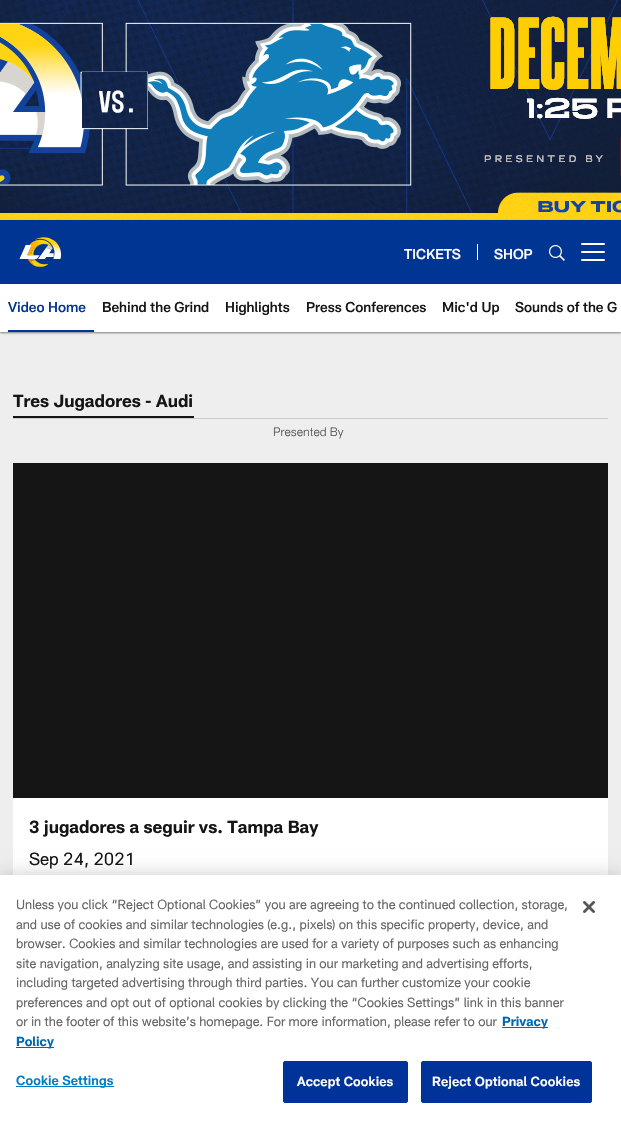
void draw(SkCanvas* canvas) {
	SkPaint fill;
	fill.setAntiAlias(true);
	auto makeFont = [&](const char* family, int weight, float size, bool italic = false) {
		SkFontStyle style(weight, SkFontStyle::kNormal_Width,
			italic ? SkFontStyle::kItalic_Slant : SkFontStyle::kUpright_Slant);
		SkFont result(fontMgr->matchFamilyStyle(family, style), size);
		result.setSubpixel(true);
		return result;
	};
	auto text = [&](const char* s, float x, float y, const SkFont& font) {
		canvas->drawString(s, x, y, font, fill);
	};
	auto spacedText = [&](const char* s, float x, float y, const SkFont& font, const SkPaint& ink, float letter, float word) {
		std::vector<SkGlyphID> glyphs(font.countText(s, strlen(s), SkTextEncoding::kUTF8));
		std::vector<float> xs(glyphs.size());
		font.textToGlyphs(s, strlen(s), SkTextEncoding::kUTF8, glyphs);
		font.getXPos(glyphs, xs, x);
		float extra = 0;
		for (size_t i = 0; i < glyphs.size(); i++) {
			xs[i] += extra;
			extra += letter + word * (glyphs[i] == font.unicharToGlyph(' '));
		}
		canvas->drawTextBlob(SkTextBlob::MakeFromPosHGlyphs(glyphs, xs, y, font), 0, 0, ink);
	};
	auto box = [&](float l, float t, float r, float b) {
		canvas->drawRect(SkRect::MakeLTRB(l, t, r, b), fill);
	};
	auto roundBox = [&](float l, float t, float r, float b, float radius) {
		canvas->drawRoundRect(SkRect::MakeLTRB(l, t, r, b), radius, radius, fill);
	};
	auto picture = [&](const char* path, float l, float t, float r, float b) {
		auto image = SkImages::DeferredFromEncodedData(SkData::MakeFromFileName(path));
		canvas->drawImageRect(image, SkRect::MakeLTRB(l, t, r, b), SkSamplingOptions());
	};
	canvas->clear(0xFFEEEEEE);
	picture("image0.png", 0, 0, 621, 220);
	fill.setColor(0x78000000);
	fill.setMaskFilter(SkMaskFilter::MakeBlur(kNormal_SkBlurStyle, 1));
	canvas->drawRect(SkRect::MakeLTRB(0, 221, 621, 285), fill);
	fill.setMaskFilter(nullptr);
	fill.setColor(0xFF003594);
	box(0, 220, 621, 284);
	picture("image1.png", 19, 237, 62, 267);
	fill.setColor(0xFFFFFFFF);
	box(477, 244, 478, 260);
	picture("image2.png", 549, 245, 565, 261);
	roundBox(581, 251, 605, 253, 1);
	roundBox(581, 243, 605, 245, 1);
	roundBox(581, 259, 605, 261, 1);
	fill.setColor(0x78000000);
	fill.setMaskFilter(SkMaskFilter::MakeBlur(kNormal_SkBlurStyle, 1));
	canvas->drawRect(SkRect::MakeLTRB(0, 285, 621, 333), fill);
	fill.setMaskFilter(nullptr);
	fill.setColor(0xFFFFFFFF);
	box(0, 284, 621, 332);
	fill.setColor(0xFF003594);
	box(8, 330, 94, 332);
	fill.setColor(0xFFCCCCCC);
	box(13, 418, 608, 419);
	fill.setColor(0xFF151515);
	box(13, 416, 194, 418);
	fill.setColor(0xFFFFFFFF);
	box(13, 798, 608, 875);
	fill.setColor(0xFF151515);
	box(13, 463, 608, 798);
	fill.setColor(0x33000000);
	fill.setMaskFilter(SkMaskFilter::MakeBlur(kNormal_SkBlurStyle, 9));
	canvas->drawRect(SkRect::MakeLTRB(0, 875, 621, 1122), fill);
	fill.setMaskFilter(nullptr);
	fill.setColor(0xFFFFFFFF);
	box(0, 875, 621, 1122);
	fill.setColor(0xFF0067B1);
	box(502, 1027, 548, 1028);
	box(16, 1047, 54, 1048);
	fill.setColor(0xFF007DC3);
	box(16, 1086, 114, 1087);
	fill.setColor(0xFF003399);
	canvas->drawRoundRect(SkRect::MakeLTRB(283.5f, 1061.5f, 407.5f, 1102.5f), 1.5f, 1.5f, fill);
	fill.setStyle(SkPaint::kStroke_Style);
	fill.setStrokeWidth(1);
	canvas->drawRoundRect(SkRect::MakeLTRB(283.5f, 1061.5f, 407.5f, 1102.5f), 1.5f, 1.5f, fill);
	fill.setStyle(SkPaint::kFill_Style);
	canvas->drawRoundRect(SkRect::MakeLTRB(421.5f, 1061.5f, 591.5f, 1102.5f), 1.5f, 1.5f, fill);
	fill.setStyle(SkPaint::kStroke_Style);
	canvas->drawRoundRect(SkRect::MakeLTRB(421.5f, 1061.5f, 591.5f, 1102.5f), 1.5f, 1.5f, fill);
	picture("image3.png", 583, 901, 595, 913);
	auto font1 = makeFont("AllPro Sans", 500, 14);
	fill.setStyle(SkPaint::kFill_Style);
	fill.setColor(0xFFFFFFFF);
	text("TICKETS", 404, 259, font1);
	text("SHOP", 494, 259, font1);
	fill.setColor(0xFF003594);
	text("Video Home", 8, 312, font1);
	fill.setColor(0xFF151515);
	text("Behind the Grind", 102, 312, font1);
	text("Highlights", 225, 312, font1);
	text("Press Conferences", 306, 312, font1);
	text("Mic'd Up", 442, 312, font1);
	text("Sounds of the G", 515, 312, font1);
	auto font2 = makeFont("AllPro Sans", 700, 17.3f);
	text("Tres Jugadores - Audi", 13, 407, font2);
	auto font3 = makeFont("AllPro Sans", 300, 12);
	fill.setColor(0xFF555555);
	text("Presented By", 273, 436, font3);
	fill.setColor(0xFF151515);
	text("3 jugadores a seguir vs. Tampa Bay", 29, 833, font2);
	auto font4 = makeFont("AllPro Sans", 400, 17.3f);
	text("Sep 24, 2021", 29, 865, font4);
	auto font5 = makeFont("AllPro Sans", 400, 13);
	fill.setColor(0xFF666666);
	text("Unless you click “Reject Optional Cookies” you are agreeing to the continued collection, storage,", 16, 909, font5);
	text("and use of cookies and similar technologies (e.g., pixels) on this specific property, device, and", 16, 929, font5);
	text("browser. Cookies and similar technologies are used for a variety of purposes such as enhancing", 16, 948, font5);
	text("site navigation, analyzing site usage, and assisting in our marketing and advertising efforts,", 16, 968, font5);
	text("including targeted advertising through third parties. You can further customize your cookie", 16, 987, font5);
	text("preferences and opt out of optional cookies by clicking the “Cookies Settings” link in this banner", 16, 1007, font5);
	text("or in the footer of this website’s homepage. For more information, please refer to our", 16, 1026, font5);
	auto font6 = makeFont("AllPro Sans", 700, 13);
	fill.setColor(0xFF0067B1);
	text("Privacy", 502, 1026, font6);
	text("Policy", 16, 1046, font6);
	auto font7 = makeFont("AllPro Sans", 600, 13);
	fill.setColor(0xFF007DC3);
	spacedText("Cookie Settings", 16, 1085, font7, fill, 0.1f, 0);
	fill.setColor(0xFFFFFFFF);
	spacedText("Accept Cookies", 297, 1086, font7, fill, 0.1f, 0);
	spacedText("Reject Optional Cookies", 432, 1086, font7, fill, 0.1f, 0);
}
